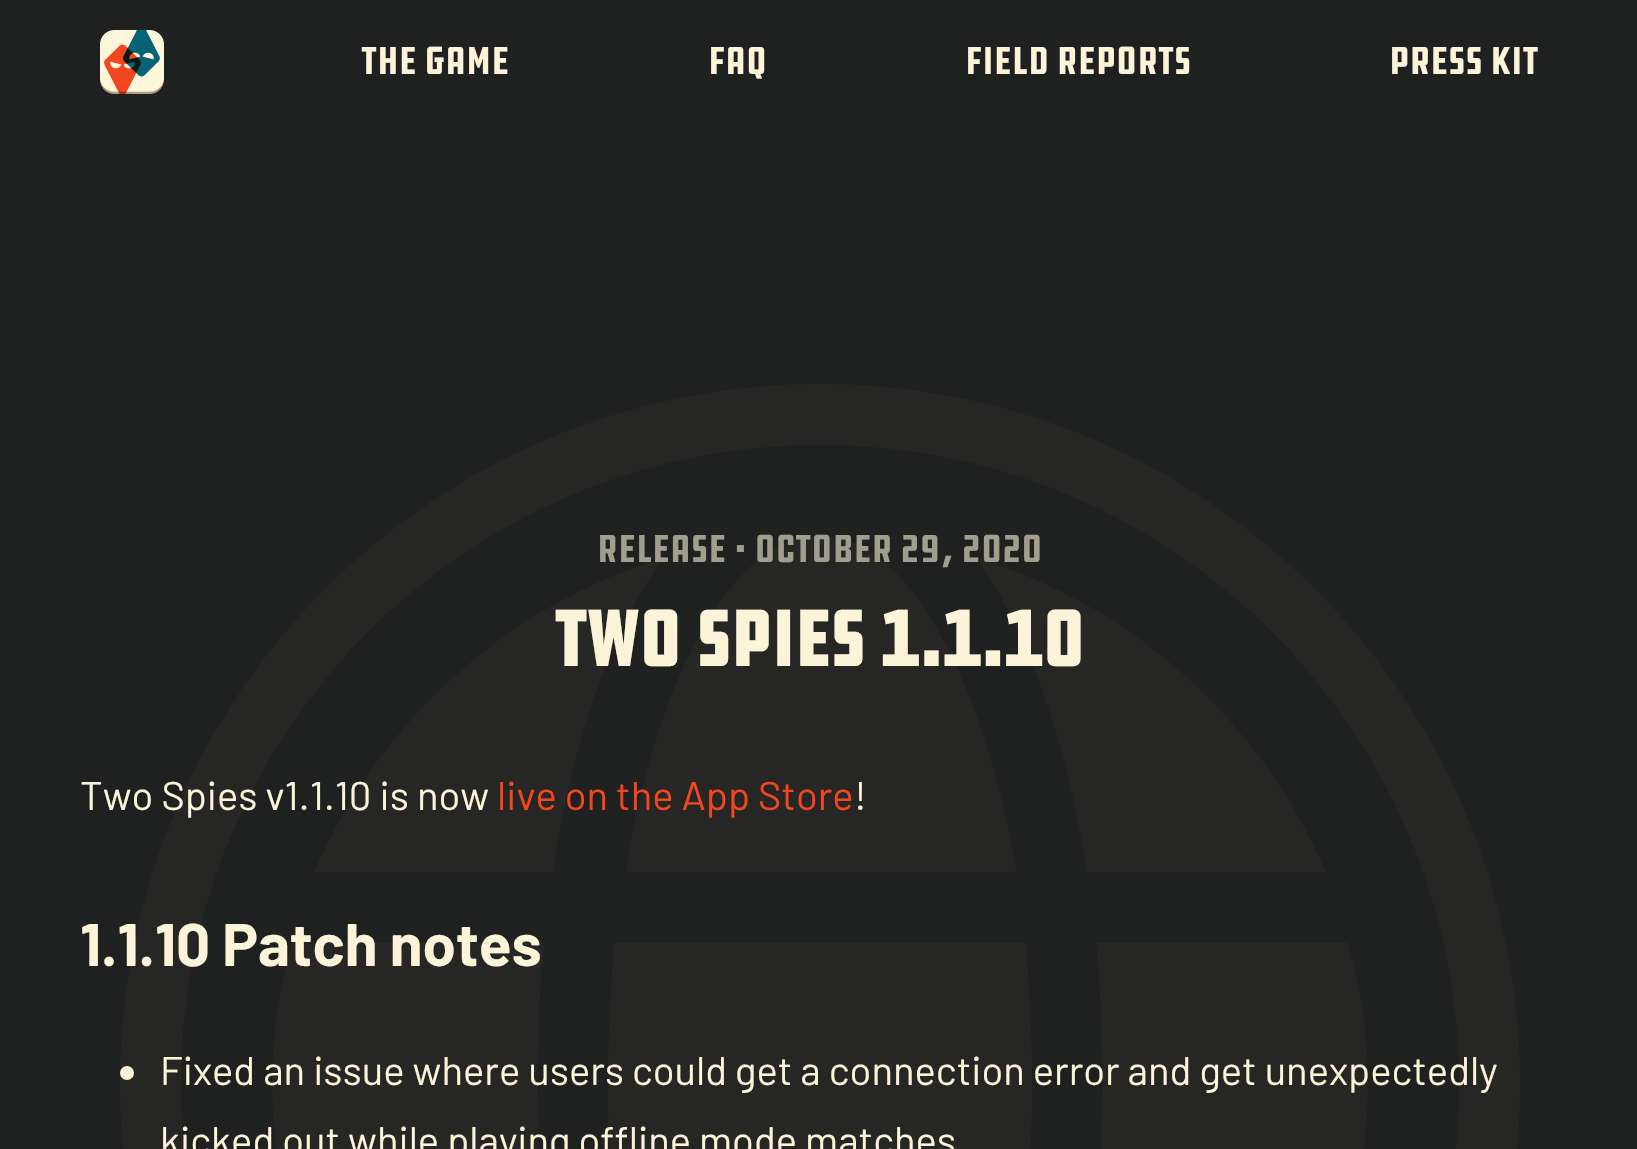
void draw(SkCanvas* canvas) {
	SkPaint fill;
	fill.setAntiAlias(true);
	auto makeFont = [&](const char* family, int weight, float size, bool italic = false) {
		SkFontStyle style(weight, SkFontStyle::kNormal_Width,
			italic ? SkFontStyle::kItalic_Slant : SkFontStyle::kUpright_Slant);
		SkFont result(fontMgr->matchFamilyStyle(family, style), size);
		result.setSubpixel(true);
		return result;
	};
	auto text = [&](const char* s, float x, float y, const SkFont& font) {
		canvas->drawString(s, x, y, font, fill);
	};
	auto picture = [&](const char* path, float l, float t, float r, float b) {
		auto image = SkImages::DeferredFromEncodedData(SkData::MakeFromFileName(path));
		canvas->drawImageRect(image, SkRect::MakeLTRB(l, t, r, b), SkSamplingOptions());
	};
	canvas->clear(0xFF1F2020);
	picture("image0.png", 100, 30, 164, 94);
	picture("image1.png", 120, 384, 1520, 1149);
	fill.setColor(0xFFFCF4D9);
	canvas->drawCircle(127, 1073, 7, fill);
	auto font1 = makeFont("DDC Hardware", 400, 40);
	text("The Game", 361, 74, font1);
	text("FAQ", 708, 74, font1);
	text("Field Reports", 965, 74, font1);
	text("Press Kit", 1389, 74, font1);
	fill.setColor(0xFFA29E8D);
	text("release • October 29, 2020", 597, 562, font1);
	auto font2 = makeFont("DDC Hardware", 700, 80);
	fill.setColor(0xFFFCF4D9);
	text("Two Spies 1.1.10", 554, 666, font2);
	auto font3 = makeFont("Barlow", 400, 40);
	text("Two Spies v1.1.10 is now", 80, 810, font3);
	fill.setColor(0xFFF24620);
	text("live on the App Store", 497, 810, font3);
	fill.setColor(0xFFFCF4D9);
	text("!", 854, 810, font3);
	auto font4 = makeFont("Barlow", 700, 60);
	text("1.1.10 Patch notes", 80, 966, font4);
	text("Fixed an issue where users could get a connection error and get unexpectedly", 160, 1085, font3);
	text("kicked out while playing offline mode matches", 160, 1155, font3);
}
